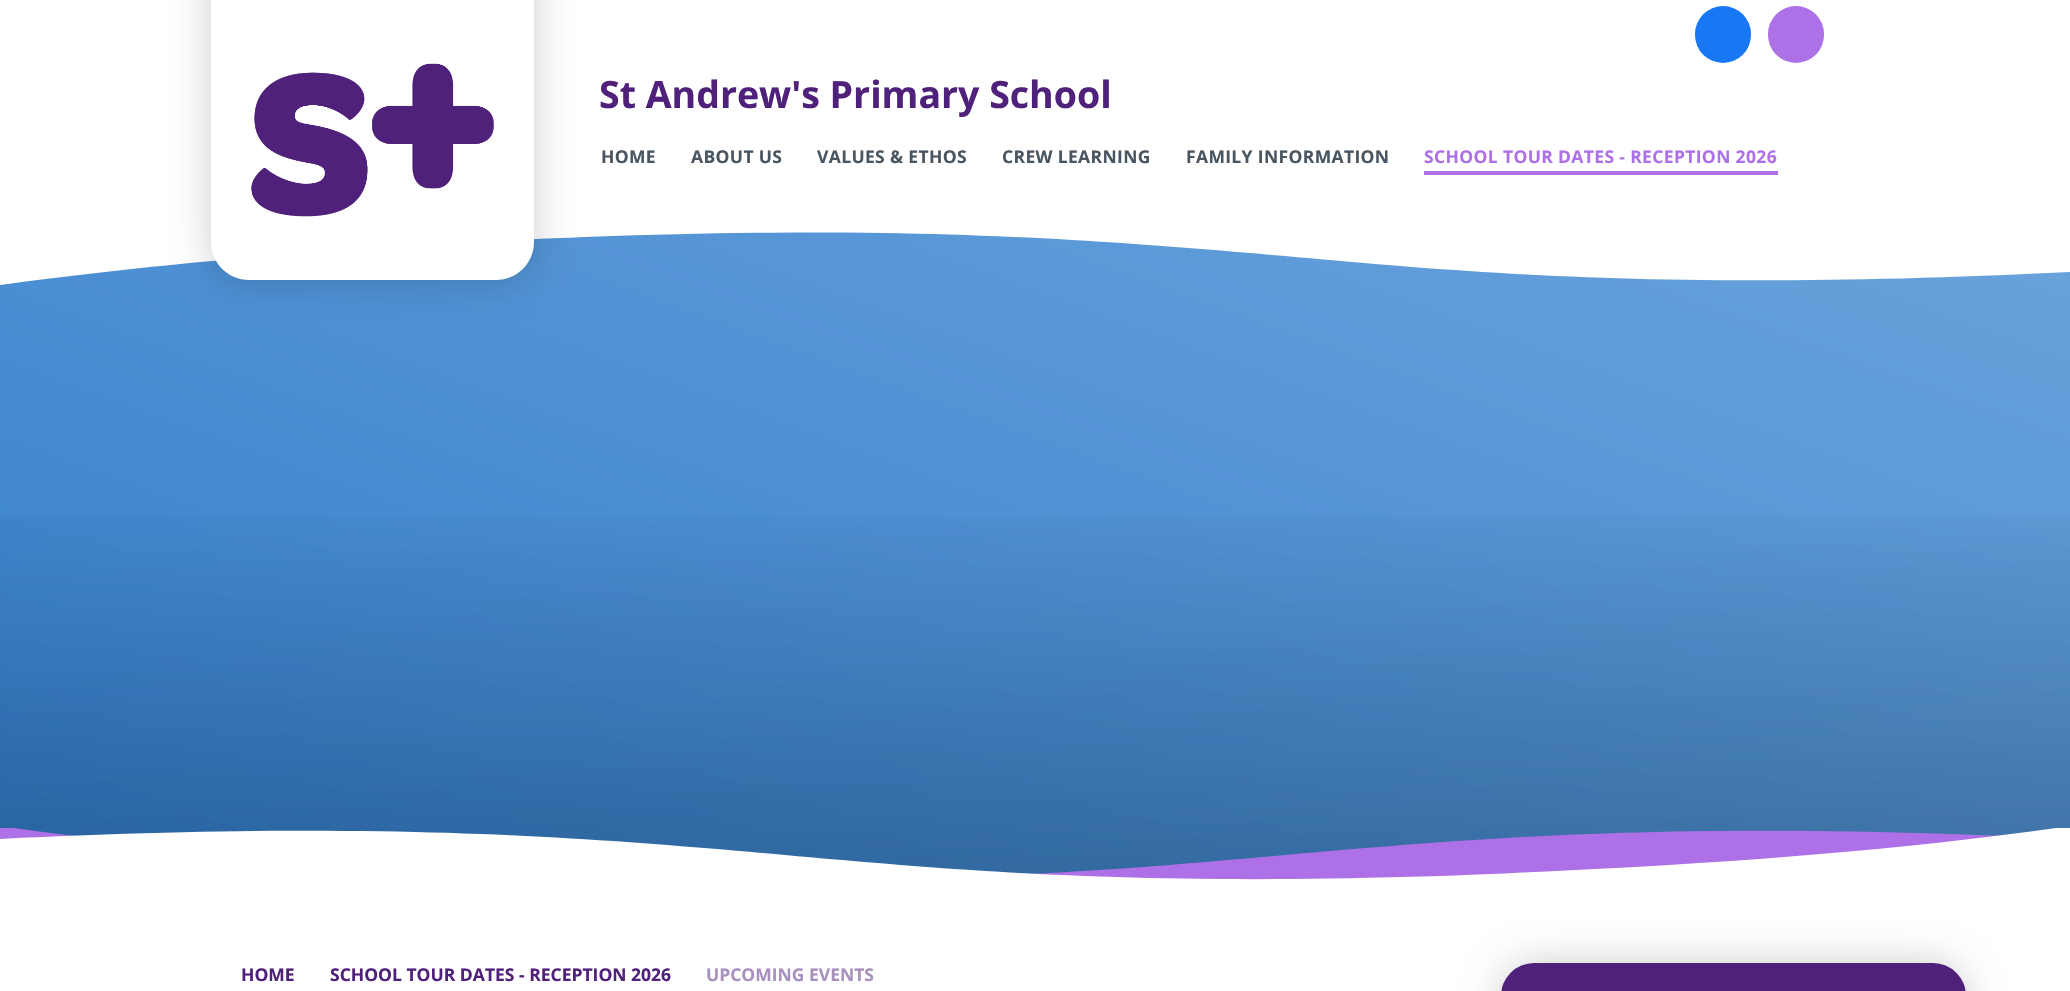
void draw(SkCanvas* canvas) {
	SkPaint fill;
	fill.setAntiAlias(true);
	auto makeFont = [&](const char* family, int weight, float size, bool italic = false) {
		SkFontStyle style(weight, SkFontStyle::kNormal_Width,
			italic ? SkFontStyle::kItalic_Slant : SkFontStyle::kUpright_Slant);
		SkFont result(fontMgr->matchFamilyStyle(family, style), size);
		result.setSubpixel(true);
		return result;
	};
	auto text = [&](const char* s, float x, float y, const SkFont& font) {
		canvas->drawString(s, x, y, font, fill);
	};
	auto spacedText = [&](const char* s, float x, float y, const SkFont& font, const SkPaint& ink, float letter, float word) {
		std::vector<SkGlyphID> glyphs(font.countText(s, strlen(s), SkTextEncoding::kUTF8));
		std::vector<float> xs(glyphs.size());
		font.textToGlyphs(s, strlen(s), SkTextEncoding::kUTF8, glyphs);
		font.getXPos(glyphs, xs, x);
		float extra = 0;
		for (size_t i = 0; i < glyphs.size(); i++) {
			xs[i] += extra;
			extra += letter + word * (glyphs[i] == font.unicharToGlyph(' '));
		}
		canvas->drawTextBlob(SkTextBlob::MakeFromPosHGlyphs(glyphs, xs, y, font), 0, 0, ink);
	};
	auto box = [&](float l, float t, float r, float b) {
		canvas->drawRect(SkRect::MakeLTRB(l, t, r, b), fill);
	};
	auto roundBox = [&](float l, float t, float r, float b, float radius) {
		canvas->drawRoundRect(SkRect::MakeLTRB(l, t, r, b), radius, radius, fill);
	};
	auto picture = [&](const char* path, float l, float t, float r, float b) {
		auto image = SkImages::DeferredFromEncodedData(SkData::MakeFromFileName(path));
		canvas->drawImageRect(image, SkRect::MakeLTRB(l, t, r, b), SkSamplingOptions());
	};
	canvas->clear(0xFFFFFFFF);
	{
		const SkColor colors[] = {0xFF6CA4DC, 0xFF307DCC};
		const float stops[] = {0, 1};
		const SkPoint ends[] = {{1273, -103}, {797, 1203}};
		fill.setShader(SkGradientShader::MakeLinear(ends, colors, stops, 2, SkTileMode::kClamp));
		fill.setAlpha(255);
	}
	box(0, 232, 2070, 874);
	fill.setShader(nullptr);
	fill.setColor(0xFFFFFFFF);
	canvas->drawPath(SkPathBuilder().moveTo(0, 199).lineTo(0, 285).cubicTo(125, 268, 275, 253, 475, 242).cubicTo(878, 221, 1085, 239, 1285, 256).cubicTo(1481, 274, 1684, 291, 2070, 272).lineTo(2070, 199).close().detach(), fill);
	fill.setColor(0x33000000);
	fill.setMaskFilter(SkMaskFilter::MakeBlur(kNormal_SkBlurStyle, 19));
	canvas->drawRoundRect(SkRect::MakeLTRB(211, -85, 534, 280), 38, 38, fill);
	fill.setMaskFilter(nullptr);
	fill.setColor(0xFFFFFFFF);
	canvas->drawPath(SkPathBuilder().moveTo(211, -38).lineTo(534, -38).lineTo(534, 242).cubicTo(534, 263, 517, 280, 496, 280).lineTo(249, 280).cubicTo(228, 280, 211, 263, 211, 242).close().detach(), fill);
	picture("image0.png", 251, 63, 494, 217);
	fill.setColor(0xFF1877F2);
	roundBox(1695, 6, 1751, 63, 28);
	fill.setColor(0xFFAE70E7);
	roundBox(1768, 6, 1824, 63, 28);
	box(1424, 171, 1778, 175);
	{
		const SkColor colors[] = {0x40000000, 0x00000000};
		const float stops[] = {0, 1};
		const SkPoint ends[] = {{1035, 913}, {1035, 478}};
		fill.setShader(SkGradientShader::MakeLinear(ends, colors, stops, 2, SkTileMode::kClamp));
		fill.setAlpha(255);
	}
	box(0, 516, 2070, 874);
	fill.setShader(nullptr);
	fill.setColor(0x33000000);
	fill.setMaskFilter(SkMaskFilter::MakeBlur(kNormal_SkBlurStyle, 19));
	canvas->drawRoundRect(SkRect::MakeLTRB(1501, 963, 1966, 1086), 38, 38, fill);
	fill.setMaskFilter(nullptr);
	canvas->save();
	canvas->clipRect(SkRect::MakeLTRB(0, 828, 2070, 913));
	fill.setColor(0xFFAE70E7);
	canvas->drawPath(SkPathBuilder().moveTo(0, 913).lineTo(0, 826).cubicTo(125, 844, 275, 859, 475, 869).cubicTo(878, 891, 1085, 873, 1285, 855).cubicTo(1481, 838, 1684, 820, 2070, 839).lineTo(2070, 913).close().detach(), fill);
	fill.setColor(0xFFFFFFFF);
	canvas->drawPath(SkPathBuilder().moveTo(2070, 913).lineTo(2070, 826).cubicTo(1945, 844, 1795, 859, 1595, 869).cubicTo(1192, 891, 985, 873, 785, 855).cubicTo(589, 838, 386, 820, 0, 839).lineTo(0, 913).close().detach(), fill);
	canvas->restore();
	fill.setColor(0xFF50217B);
	roundBox(1501, 963, 1966, 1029, 38);
	auto font1 = makeFont("Open Sans", 700, 37.5f);
	text("St Andrew's Primary School", 599, 108, font1);
	auto font2 = makeFont("Open Sans", 700, 17.5f);
	fill.setColor(0xFF495661);
	spacedText("HOME", 601, 163, font2, fill, 0.35f, 0);
	spacedText("ABOUT US", 691, 163, font2, fill, 0.35f, 0);
	spacedText("VALUES & ETHOS", 817, 163, font2, fill, 0.35f, 0);
	spacedText("CREW LEARNING", 1002, 163, font2, fill, 0.35f, 0);
	spacedText("FAMILY INFORMATION", 1186, 163, font2, fill, 0.35f, 0);
	fill.setColor(0xFFAE70E7);
	spacedText("SCHOOL TOUR DATES - RECEPTION 2026", 1424, 163, font2, fill, 0.35f, 0);
	fill.setColor(0xFF50217B);
	text("HOME", 241, 981, font2);
	text("SCHOOL TOUR DATES - RECEPTION 2026", 330, 981, font2);
	fill.setColor(0xFFA890BD);
	text("UPCOMING EVENTS", 706, 981, font2);
}
